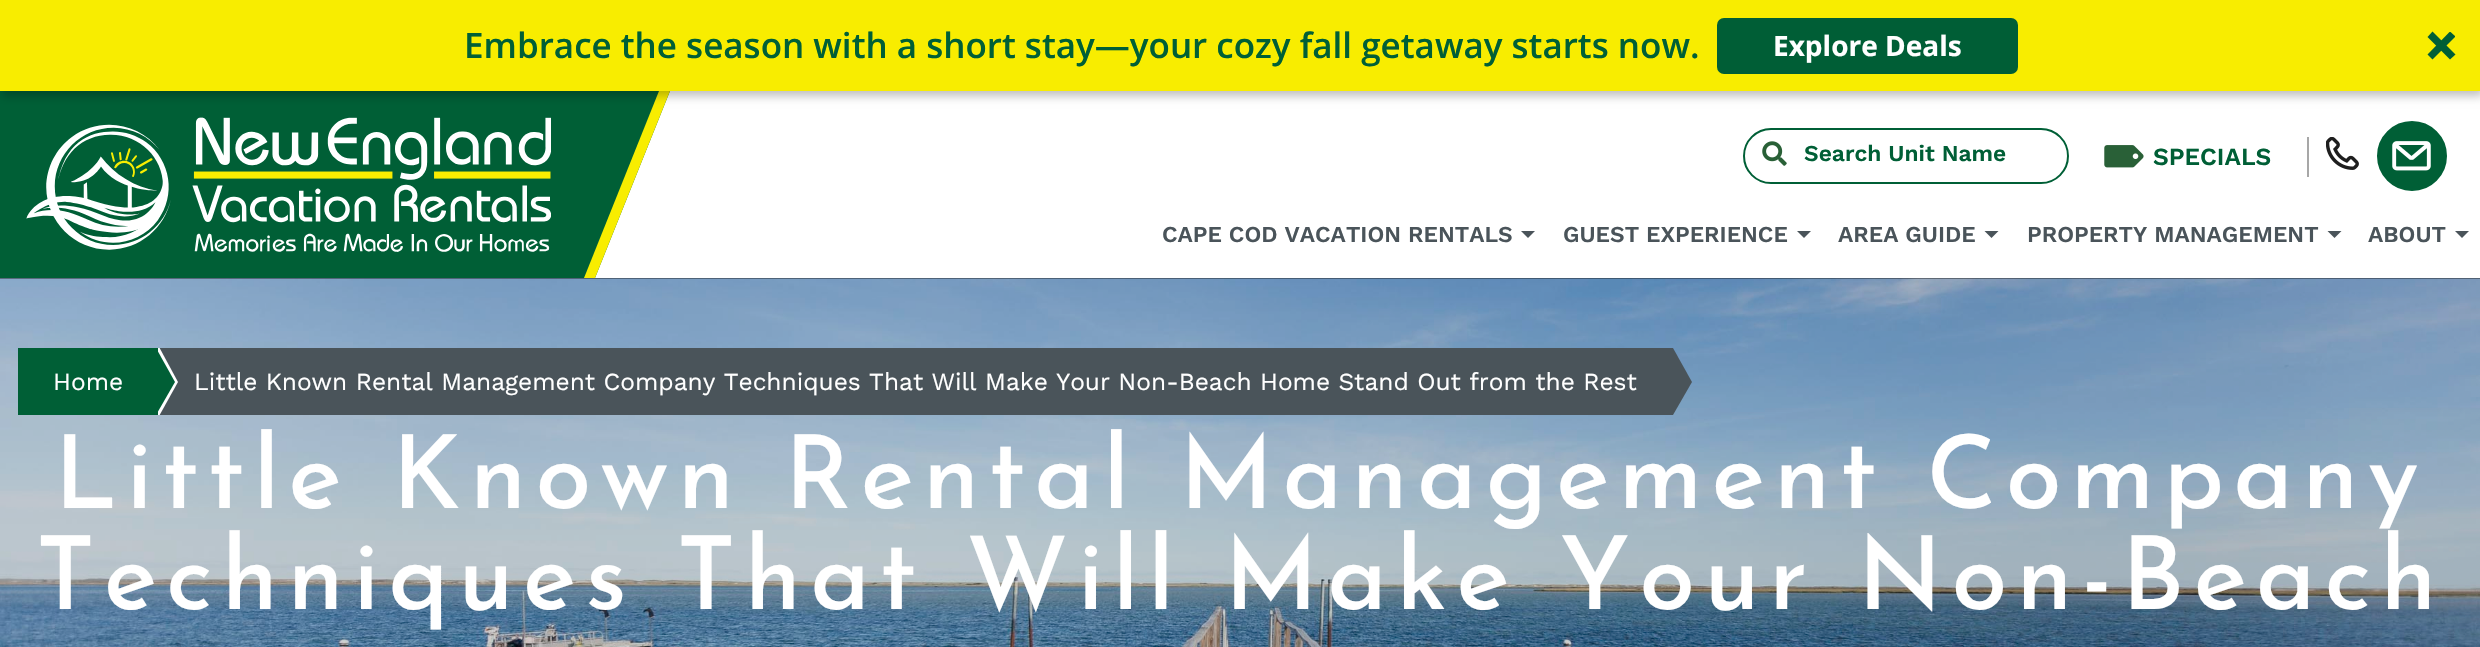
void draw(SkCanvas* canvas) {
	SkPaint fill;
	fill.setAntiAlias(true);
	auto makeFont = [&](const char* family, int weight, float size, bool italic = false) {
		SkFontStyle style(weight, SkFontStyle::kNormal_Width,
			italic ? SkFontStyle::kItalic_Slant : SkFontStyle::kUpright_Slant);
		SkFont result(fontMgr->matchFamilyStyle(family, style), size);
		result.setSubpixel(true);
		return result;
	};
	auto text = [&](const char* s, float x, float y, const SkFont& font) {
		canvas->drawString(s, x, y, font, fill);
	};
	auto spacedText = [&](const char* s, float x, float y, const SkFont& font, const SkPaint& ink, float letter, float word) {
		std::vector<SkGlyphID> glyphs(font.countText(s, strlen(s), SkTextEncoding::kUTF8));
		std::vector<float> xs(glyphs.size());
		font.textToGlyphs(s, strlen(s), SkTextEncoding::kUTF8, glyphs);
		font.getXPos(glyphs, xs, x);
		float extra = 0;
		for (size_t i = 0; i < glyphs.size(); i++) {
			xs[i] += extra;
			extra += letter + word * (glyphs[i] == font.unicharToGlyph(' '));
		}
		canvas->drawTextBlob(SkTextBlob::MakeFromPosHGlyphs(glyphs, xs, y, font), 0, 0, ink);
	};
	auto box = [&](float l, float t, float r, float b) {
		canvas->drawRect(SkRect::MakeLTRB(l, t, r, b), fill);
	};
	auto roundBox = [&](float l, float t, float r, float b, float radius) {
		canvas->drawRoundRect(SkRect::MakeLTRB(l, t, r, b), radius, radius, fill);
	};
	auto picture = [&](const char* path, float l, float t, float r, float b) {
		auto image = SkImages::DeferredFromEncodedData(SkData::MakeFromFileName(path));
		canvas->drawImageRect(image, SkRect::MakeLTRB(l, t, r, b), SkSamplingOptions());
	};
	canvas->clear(0xFFFFFFFF);
	fill.setColor(0xFF005F36);
	box(0, 91, 585, 278);
	canvas->save();
	canvas->clipRect(SkRect::MakeLTRB(585, 91, 670, 278));
	canvas->drawPath(SkPathBuilder().moveTo(595, 278).lineTo(584, 278).lineTo(584, 91).lineTo(670, 91).close().detach(), fill);
	canvas->restore();
	fill.setColor(0xFFF8ED00);
	canvas->drawPath(SkPathBuilder().moveTo(595, 278).lineTo(584, 278).lineTo(659, 91).lineTo(670, 91).close().detach(), fill);
	fill.setColor(0x40000000);
	fill.setMaskFilter(SkMaskFilter::MakeBlur(kNormal_SkBlurStyle, 4.5f));
	canvas->drawRect(SkRect::MakeLTRB(2, 5, 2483, 96), fill);
	fill.setMaskFilter(nullptr);
	fill.setColor(0xFFF8ED00);
	box(0, 0, 2480, 91);
	fill.setColor(0xFF005E36);
	roundBox(1717, 18, 2018, 74, 7);
	canvas->save();
	canvas->clipRect(SkRect::MakeLTRB(2427, 32, 2455, 60));
	canvas->drawPath(SkPathBuilder().moveTo(2450, 31.5f).lineTo(2455.5f, 36.5f).lineTo(2432.5f, 59.5f).lineTo(2427.5f, 54.5f).close().detach(), fill);
	canvas->restore();
	canvas->drawPath(SkPathBuilder().moveTo(2455.5f, 54.5f).lineTo(2450, 59.5f).lineTo(2427.5f, 37).lineTo(2432.5f, 31.5f).close().detach(), fill);
	picture("image0.png", 26, 117, 551, 252);
	fill.setStyle(SkPaint::kStroke_Style);
	fill.setStrokeWidth(2);
	fill.setColor(0xFF005F36);
	canvas->drawRoundRect(SkRect::MakeLTRB(1744, 129, 2068, 183), 27, 27, fill);
	picture("image1.png", 1762, 141, 1787, 166);
	picture("image2.png", 2104, 145, 2144, 168);
	fill.setStyle(SkPaint::kFill_Style);
	fill.setColor(0xFFA7A7A7);
	box(2307, 137, 2309, 177);
	picture("image3.png", 2326, 137, 2359, 170);
	fill.setColor(0xFF005F36);
	canvas->drawCircle(2412, 156, 34, fill);
	fill.setStyle(SkPaint::kStroke_Style);
	canvas->drawCircle(2412, 156, 34, fill);
	picture("image4.png", 2392, 141, 2431, 171);
	fill.setStyle(SkPaint::kFill_Style);
	fill.setColor(0xFF4A545A);
	canvas->drawPath(SkPathBuilder().moveTo(1521, 231).lineTo(1535, 231).lineTo(1528, 238).close().detach(), fill);
	canvas->drawPath(SkPathBuilder().moveTo(1797, 231).lineTo(1811, 231).lineTo(1804, 238).close().detach(), fill);
	canvas->drawPath(SkPathBuilder().moveTo(1984.5f, 231).lineTo(1998.5f, 231).lineTo(1991.5f, 238).close().detach(), fill);
	canvas->drawPath(SkPathBuilder().moveTo(2327.5f, 231).lineTo(2341.5f, 231).lineTo(2334.5f, 238).close().detach(), fill);
	canvas->drawPath(SkPathBuilder().moveTo(2455, 231).lineTo(2469, 231).lineTo(2462, 238).close().detach(), fill);
	fill.setColor(0xFF1A1A1A);
	box(0, 278, 2480, 647);
	picture("image5.png", 0, 278, 2480, 647);
	fill.setColor(0xFF005F36);
	box(18, 348, 158, 415);
	fill.setColor(0xFF4A545A);
	box(159, 348, 1673, 415);
	canvas->save();
	canvas->clipRect(SkRect::MakeLTRB(0, 348, 1692, 415));
	fill.setColor(0xFFFFFFFF);
	canvas->drawPath(SkPathBuilder().moveTo(158, 418).lineTo(158, 345).lineTo(178, 382).close().detach(), fill);
	canvas->restore();
	fill.setColor(0xFF005F36);
	canvas->drawPath(SkPathBuilder().moveTo(156, 415).lineTo(156, 348).lineTo(175, 382).close().detach(), fill);
	fill.setColor(0xFF4A545A);
	canvas->drawPath(SkPathBuilder().moveTo(1673, 415).lineTo(1673, 348).lineTo(1692, 382).close().detach(), fill);
	auto font1 = makeFont("Open Sans", 600, 35);
	fill.setColor(0xFF005F36);
	text("Embrace the season with a short stay—your cozy fall getaway starts now.", 464, 58, font1);
	auto font2 = makeFont("Open Sans", 700, 28);
	fill.setColor(0xFFFFFFFF);
	text("Explore Deals", 1773, 56, font2);
	auto font3 = makeFont("Work Sans", 600, 22.75f);
	fill.setColor(0xFF005F36);
	text("Search Unit Name", 1804, 161, font3);
	auto font4 = makeFont("Work Sans", 600, 24.5f);
	text("SPECIALS", 2153, 165, font4);
	fill.setColor(0xFF4A545A);
	text("CAPE COD VACATION RENTALS", 1162, 242, font3);
	text("GUEST EXPERIENCE", 1563, 242, font3);
	text("AREA GUIDE", 1838, 242, font3);
	text("PROPERTY MANAGEMENT", 2027, 242, font3);
	text("ABOUT", 2368, 242, font3);
	auto font5 = makeFont("Work Sans", 400, 24.5f);
	fill.setColor(0xFFFFFFFF);
	text("Home", 53, 390, font5);
	text("Little Known Rental Management Company Techniques That Will Make Your Non-Beach Home Stand Out from the Rest", 194, 390, font5);
	auto font6 = makeFont("Josefin Sans", 500, 101.5f);
	spacedText("Little Known Rental Management Company", 54, 508, font6, fill, 8.75f, 0);
	spacedText("Techniques That Will Make Your Non-Beach", 36, 609, font6, fill, 8.75f, 0);
}
